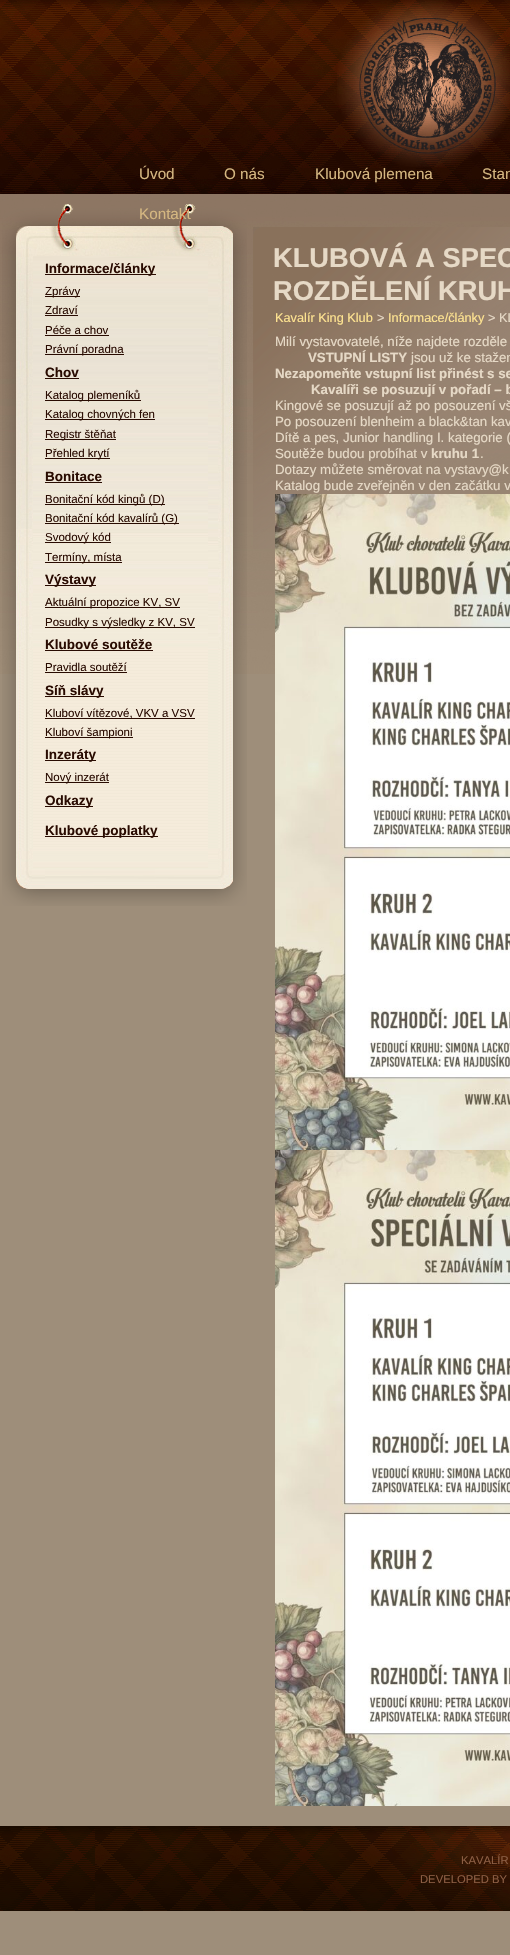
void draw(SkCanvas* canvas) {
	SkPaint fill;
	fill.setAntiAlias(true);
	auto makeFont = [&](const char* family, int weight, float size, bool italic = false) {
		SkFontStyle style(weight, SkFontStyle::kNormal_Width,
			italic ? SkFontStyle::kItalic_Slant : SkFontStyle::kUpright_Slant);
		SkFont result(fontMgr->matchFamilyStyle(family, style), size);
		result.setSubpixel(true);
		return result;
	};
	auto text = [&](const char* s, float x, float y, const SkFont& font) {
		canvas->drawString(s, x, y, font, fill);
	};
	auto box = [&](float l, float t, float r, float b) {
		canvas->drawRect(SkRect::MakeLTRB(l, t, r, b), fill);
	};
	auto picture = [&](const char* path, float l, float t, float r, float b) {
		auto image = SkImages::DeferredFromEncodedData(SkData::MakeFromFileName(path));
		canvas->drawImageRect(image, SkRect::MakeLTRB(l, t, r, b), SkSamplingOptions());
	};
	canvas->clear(0xFF9E8E7A);
	picture("image0.png", 0, 0, 510, 674);
	picture("image1.png", 0, 1826, 95, 1911);
	picture("image2.png", 337, 0, 510, 167);
	picture("image3.png", 2, 846, 247, 906);
	picture("image4.png", 2, 259, 247, 846);
	picture("image5.png", 2, 204, 247, 650);
	fill.setColor(0xFF290B01);
	box(45, 274, 156, 275);
	box(45, 296, 80, 297);
	box(45, 315, 78, 316);
	box(45, 335, 109, 336);
	box(45, 354, 124, 355);
	box(45, 378, 79, 379);
	box(45, 400, 141, 401);
	box(45, 419, 155, 420);
	box(45, 439, 116, 440);
	box(45, 458, 110, 459);
	box(45, 482, 102, 483);
	box(45, 504, 165, 505);
	box(45, 523, 179, 524);
	box(45, 542, 111, 543);
	box(45, 562, 122, 563);
	box(45, 585, 96, 586);
	box(45, 607, 180, 608);
	box(45, 627, 195, 628);
	box(45, 650, 153, 651);
	box(45, 672, 127, 673);
	box(45, 696, 104, 697);
	box(45, 718, 195, 719);
	box(45, 737, 133, 738);
	box(45, 760, 96, 761);
	box(45, 782, 109, 783);
	box(45, 806, 93, 807);
	box(45, 836, 158, 837);
	picture("image6.png", 253, 227, 510, 549);
	picture("image7.png", 275, 494, 510, 1150);
	picture("image8.png", 275, 1150, 510, 1806);
	picture("image9.png", 95, 1826, 510, 1911);
	auto font1 = makeFont("Liberation Sans", 400, 15.25f);
	fill.setColor(0xFFD5B781);
	text("Úvod", 139, 179, font1);
	text("O nás", 224, 179, font1);
	text("Klubová plemena", 315, 179, font1);
	text("Stan", 482, 179, font1);
	text("Kontakt", 139, 219, font1);
	auto font2 = makeFont("Liberation Sans", 700, 13.5f);
	fill.setColor(0xFF290B01);
	text("Informace/články", 45, 273, font2);
	auto font3 = makeFont("Liberation Sans", 400, 11.5f);
	text("Zprávy", 45, 295, font3);
	text("Zdraví", 45, 314, font3);
	text("Péče a chov", 45, 334, font3);
	text("Právní poradna", 45, 353, font3);
	text("Chov", 45, 377, font2);
	text("Katalog plemeníků", 45, 399, font3);
	text("Katalog chovných fen", 45, 418, font3);
	text("Registr štěňat", 45, 438, font3);
	text("Přehled krytí", 45, 457, font3);
	text("Bonitace", 45, 481, font2);
	text("Bonitační kód kingů (D)", 45, 503, font3);
	text("Bonitační kód kavalírů (G)", 45, 522, font3);
	text("Svodový kód", 45, 541, font3);
	text("Termíny, místa", 45, 561, font3);
	text("Výstavy", 45, 584, font2);
	text("Aktuální propozice KV, SV", 45, 606, font3);
	text("Posudky s výsledky z KV, SV", 45, 626, font3);
	text("Klubové soutěže", 45, 649, font2);
	text("Pravidla soutěží", 45, 671, font3);
	text("Síň slávy", 45, 695, font2);
	text("Kluboví vítězové, VKV a VSV", 45, 717, font3);
	text("Kluboví šampioni", 45, 736, font3);
	text("Inzeráty", 45, 759, font2);
	text("Nový inzerát", 45, 781, font3);
	text("Odkazy", 45, 805, font2);
	text("Klubové poplatky", 45, 835, font2);
	auto font4 = makeFont("Liberation Sans", 700, 27.25f);
	fill.setColor(0xFFE6D9C6);
	text("KLUBOVÁ A SPEC", 273, 267, font4);
	text("ROZDĚLENÍ KRUH", 273, 300, font4);
	auto font5 = makeFont("Liberation Sans", 400, 12.75f);
	fill.setColor(0xFFFFE491);
	text("Kavalír King Klub", 275, 322, font5);
	fill.setColor(0xFFE6D9C6);
	text(">", 377, 322, font5);
	fill.setColor(0xFFFFE491);
	text("Informace/články", 388, 322, font5);
	fill.setColor(0xFFE6D9C6);
	text("> KL", 488, 322, font5);
	auto font6 = makeFont("Liberation Sans", 400, 13.3f);
	text("Milí vystavovatelé, níže najdete rozděle", 275, 346, font6);
	auto font7 = makeFont("Liberation Sans", 700, 13.3f);
	text("VSTUPNÍ LISTY", 308, 362, font7);
	text("jsou už ke stažen", 411, 362, font6);
	text("Nezapomeňte vstupní list přinést s se", 275, 378, font7);
	text("Kavalíři se posuzují v pořadí – b", 311, 394, font7);
	text("Kingové se posuzují až po posouzení vš", 275, 410, font6);
	text("Po posouzení blenheim a black&tan kav", 275, 426, font6);
	text("Dítě a pes, Junior handling I. kategorie (", 275, 442, font6);
	text("Soutěže budou probíhat v", 275, 458, font6);
	text("kruhu 1", 431, 458, font7);
	text(".", 480, 458, font6);
	text("Dotazy můžete směrovat na vystavy@k", 275, 474, font6);
	text("Katalog bude zveřejněn v den začátku v", 275, 490, font6);
	auto font8 = makeFont("Liberation Sans", 400, 11.25f);
	fill.setColor(0xFF8C5E44);
	text("KAVALÍR", 461, 1864, font8);
	text("DEVELOPED BY", 420, 1883, font8);
}
